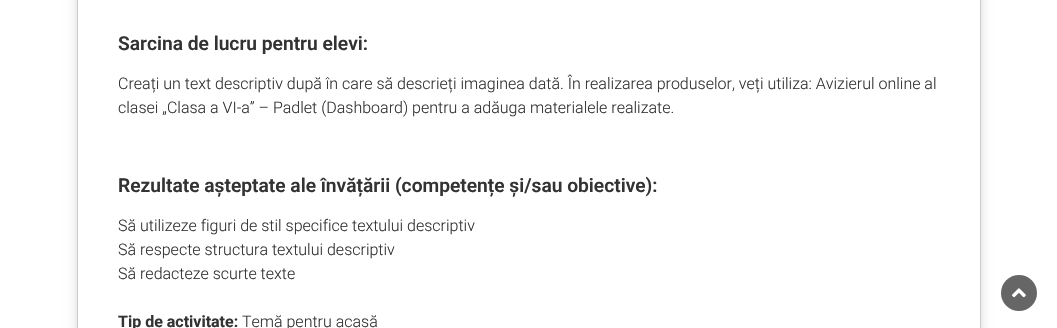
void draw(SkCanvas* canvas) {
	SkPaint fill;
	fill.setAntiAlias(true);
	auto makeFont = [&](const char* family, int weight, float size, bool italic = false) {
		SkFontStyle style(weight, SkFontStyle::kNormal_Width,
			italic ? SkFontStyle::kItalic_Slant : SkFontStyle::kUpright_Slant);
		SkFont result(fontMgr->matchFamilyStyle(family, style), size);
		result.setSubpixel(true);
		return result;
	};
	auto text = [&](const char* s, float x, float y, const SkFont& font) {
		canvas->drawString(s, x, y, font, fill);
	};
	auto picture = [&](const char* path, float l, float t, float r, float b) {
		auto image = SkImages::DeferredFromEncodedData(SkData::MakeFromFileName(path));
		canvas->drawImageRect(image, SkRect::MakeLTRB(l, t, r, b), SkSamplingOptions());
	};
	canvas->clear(0xFFFFFFFF);
	canvas->save();
	canvas->clipPath(SkPathBuilder(SkPathFillType::kEvenOdd).moveTo(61, 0).lineTo(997, 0).lineTo(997, 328).lineTo(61, 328).close().moveTo(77, -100).lineTo(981, -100).lineTo(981, 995).lineTo(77, 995).close().detach(), true);
	fill.setColor(0x26000000);
	fill.setMaskFilter(SkMaskFilter::MakeBlur(kNormal_SkBlurStyle, 5));
	canvas->drawRect(SkRect::MakeLTRB(77, -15, 981, 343), fill);
	fill.setMaskFilter(nullptr);
	canvas->restore();
	fill.setStyle(SkPaint::kStroke_Style);
	fill.setStrokeWidth(1);
	fill.setColor(0xFFCCCCCC);
	canvas->drawRect(SkRect::MakeLTRB(77.5f, -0.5f, 980.5f, 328.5f), fill);
	fill.setStyle(SkPaint::kFill_Style);
	fill.setColor(0xFF666666);
	canvas->drawCircle(1019, 293, 18, fill);
	picture("image0.png", 1012, 288, 1026, 298);
	auto font1 = makeFont("Roboto", 600, 19.2f);
	fill.setColor(0xFF333333);
	text("Sarcina de lucru pentru elevi:", 118, 50, font1);
	auto font2 = makeFont("Roboto", 300, 16);
	text("Creați un text descriptiv după în care să descrieți imaginea dată. În realizarea produselor, veți utiliza: Avizierul online al", 118, 89, font2);
	text("clasei „Clasa a VI-a” – Padlet (Dashboard) pentru a adăuga materialele realizate.", 118, 113, font2);
	text("Rezultate așteptate ale învățării (competențe și/sau obiective):", 118, 192, font1);
	text("Să utilizeze figuri de stil specifice textului descriptiv", 118, 231, font2);
	text("Să respecte structura textului descriptiv", 118, 255, font2);
	text("Să redacteze scurte texte", 118, 279, font2);
	auto font3 = makeFont("Roboto", 700, 16);
	text("Tip de activitate:", 118, 327, font3);
	text("Temă pentru acasă", 242, 327, font2);
}
